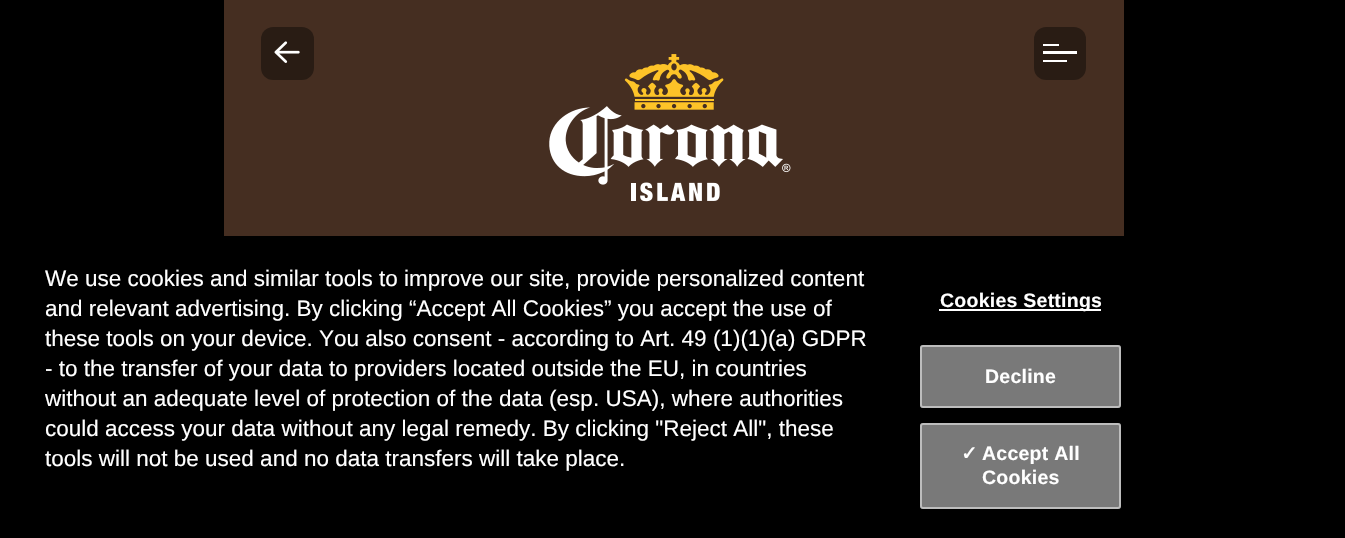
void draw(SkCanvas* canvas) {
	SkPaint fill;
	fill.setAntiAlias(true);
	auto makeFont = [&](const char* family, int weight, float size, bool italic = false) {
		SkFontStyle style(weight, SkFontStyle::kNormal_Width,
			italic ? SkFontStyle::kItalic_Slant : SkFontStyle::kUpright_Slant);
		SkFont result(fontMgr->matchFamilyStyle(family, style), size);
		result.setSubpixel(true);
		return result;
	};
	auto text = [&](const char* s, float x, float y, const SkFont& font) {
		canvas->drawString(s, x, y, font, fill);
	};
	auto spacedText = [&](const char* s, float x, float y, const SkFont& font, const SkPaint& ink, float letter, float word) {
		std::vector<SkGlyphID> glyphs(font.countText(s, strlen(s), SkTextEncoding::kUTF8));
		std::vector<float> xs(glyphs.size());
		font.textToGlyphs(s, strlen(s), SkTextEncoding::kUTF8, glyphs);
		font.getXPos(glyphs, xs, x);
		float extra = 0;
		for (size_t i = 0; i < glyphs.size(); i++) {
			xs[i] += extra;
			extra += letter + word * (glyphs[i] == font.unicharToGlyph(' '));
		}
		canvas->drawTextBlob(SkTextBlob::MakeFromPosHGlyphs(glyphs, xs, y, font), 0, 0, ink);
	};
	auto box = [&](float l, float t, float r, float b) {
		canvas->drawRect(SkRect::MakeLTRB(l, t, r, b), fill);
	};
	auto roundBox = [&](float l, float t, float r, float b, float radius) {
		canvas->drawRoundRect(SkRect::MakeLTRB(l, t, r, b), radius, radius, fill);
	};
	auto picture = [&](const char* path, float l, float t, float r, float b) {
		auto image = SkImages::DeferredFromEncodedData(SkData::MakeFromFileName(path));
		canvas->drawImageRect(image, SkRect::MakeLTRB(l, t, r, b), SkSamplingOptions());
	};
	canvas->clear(0xFF000000);
	fill.setColor(0xFF452E21);
	box(224, 0, 1124, 236);
	fill.setColor(0xFF291C14);
	roundBox(261, 27, 314, 80, 12);
	picture("image0.png", 274, 41, 300, 63);
	picture("image1.png", 549, 54, 791, 202);
	roundBox(1034, 27, 1086, 80, 12);
	fill.setColor(0xFFFFFFFF);
	box(1043, 44, 1059, 46);
	box(1043, 51, 1077, 54);
	box(1043, 60, 1067, 62);
	box(939, 309, 1101, 311);
	fill.setColor(0xFF797979);
	roundBox(920, 345, 1121, 408, 3);
	fill.setStyle(SkPaint::kStroke_Style);
	fill.setStrokeWidth(2);
	fill.setColor(0x80FFFFFF);
	canvas->drawRoundRect(SkRect::MakeLTRB(921, 346, 1120, 407), 2, 2, fill);
	fill.setStyle(SkPaint::kFill_Style);
	fill.setColor(0xFF797979);
	roundBox(920, 423, 1121, 509, 3);
	fill.setStyle(SkPaint::kStroke_Style);
	fill.setColor(0x80FFFFFF);
	canvas->drawRoundRect(SkRect::MakeLTRB(921, 424, 1120, 508), 2, 2, fill);
	auto font1 = makeFont("Liberation Sans", 400, 22.5f);
	fill.setStyle(SkPaint::kFill_Style);
	fill.setColor(0xFFFFFFFF);
	text("We use cookies and similar tools to improve our site, provide personalized content", 45, 286, font1);
	text("and relevant advertising. By clicking “Accept All Cookies” you accept the use of", 45, 316, font1);
	text("these tools on your device. You also consent - according to Art. 49 (1)(1)(a) GDPR", 45, 346, font1);
	text("- to the transfer of your data to providers located outside the EU, in countries", 45, 376, font1);
	text("without an adequate level of protection of the data (esp. USA), where authorities", 45, 406, font1);
	text("could access your data without any legal remedy. By clicking \"Reject All\", these", 45, 436, font1);
	text("tools will not be used and no data transfers will take place.", 45, 466, font1);
	auto font2 = makeFont("Liberation Sans", 700, 19.5f);
	spacedText("Cookies Settings", 940, 307, font2, fill, 0.25f, 0);
	spacedText("Decline", 985, 383, font2, fill, 0.25f, 0);
	auto font3 = makeFont("DejaVu Sans", 700, 19.5f);
	spacedText("✓", 961, 460, font3, fill, 0.25f, 0);
	spacedText("Accept All", 982, 460, font2, fill, 0.25f, 0);
	spacedText("Cookies", 982, 484, font2, fill, 0.25f, 0);
}
